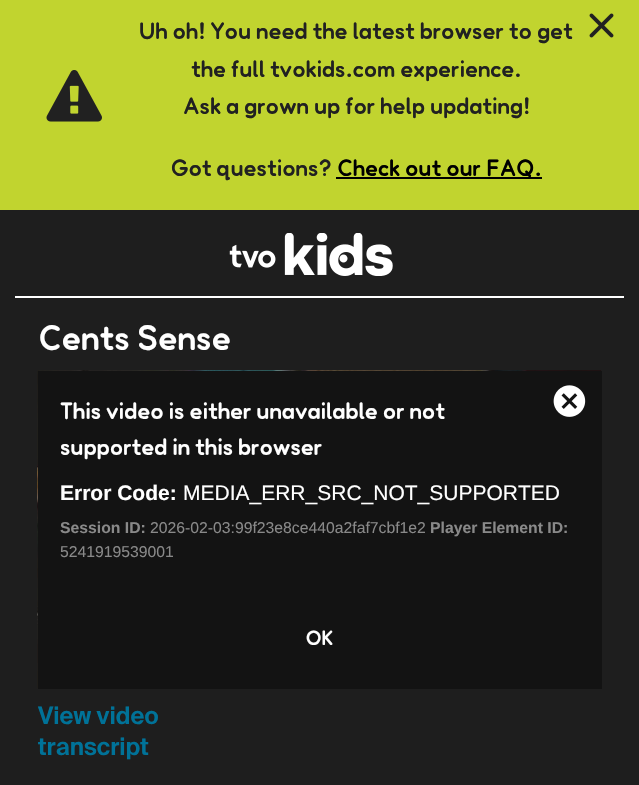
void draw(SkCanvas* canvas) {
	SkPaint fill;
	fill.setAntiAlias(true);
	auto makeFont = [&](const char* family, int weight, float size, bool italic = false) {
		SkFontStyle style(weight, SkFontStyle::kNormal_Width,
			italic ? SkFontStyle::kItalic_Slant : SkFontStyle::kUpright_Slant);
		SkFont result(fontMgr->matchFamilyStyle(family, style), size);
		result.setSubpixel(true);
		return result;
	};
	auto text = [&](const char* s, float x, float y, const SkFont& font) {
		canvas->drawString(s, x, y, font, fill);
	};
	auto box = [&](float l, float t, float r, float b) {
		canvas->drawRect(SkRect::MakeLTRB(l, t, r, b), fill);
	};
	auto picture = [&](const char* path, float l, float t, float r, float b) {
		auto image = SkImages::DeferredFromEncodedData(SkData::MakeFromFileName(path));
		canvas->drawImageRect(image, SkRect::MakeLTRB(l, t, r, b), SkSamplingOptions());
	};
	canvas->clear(0xFF1E1E1E);
	fill.setColor(0xFFC1D42F);
	box(0, 0, 639, 210);
	picture("image0.png", 46, 70, 102, 122);
	fill.setColor(0xFF000000);
	box(336, 177, 542, 179);
	picture("image1.png", 589, 13, 614, 38);
	fill.setColor(0xFFFFFFFF);
	box(15, 296, 624, 298);
	picture("image2.png", 229, 233, 393, 276);
	picture("image3.png", 37, 370, 602, 689);
	picture("image4.png", 37, 370, 602, 689);
	fill.setColor(0xFF131313);
	box(38, 371, 602, 689);
	picture("image5.png", 553, 385, 586, 417);
	auto font1 = makeFont("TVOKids", 700, 24);
	fill.setColor(0xFF212121);
	text("Uh oh! You need the latest browser to get", 139, 39, font1);
	text("the full tvokids.com experience.", 191, 77, font1);
	text("Ask a grown up for help updating!", 183, 114, font1);
	text("Got questions?", 171, 176, font1);
	fill.setColor(0xFF000000);
	text("Check out our FAQ.", 337, 176, font1);
	auto font2 = makeFont("TVOKids", 700, 36);
	fill.setColor(0xFFFFFFFF);
	text("Cents Sense", 38, 350, font2);
	text("This video is either unavailable or not", 60, 419, font1);
	text("supported in this browser", 60, 455, font1);
	auto font3 = makeFont("Liberation Sans", 700, 21);
	text("Error Code:", 60, 500, font3);
	auto font4 = makeFont("Liberation Sans", 400, 21);
	text("MEDIA_ERR_SRC_NOT_SUPPORTED", 183, 500, font4);
	auto font5 = makeFont("Liberation Sans", 700, 15.75f);
	fill.setColor(0xFF898989);
	text("Session ID:", 60, 533, font5);
	auto font6 = makeFont("Liberation Sans", 400, 15.75f);
	text("2026-02-03:99f23e8ce440a2faf7cbf1e2", 150, 533, font6);
	text("Player Element ID:", 430, 533, font5);
	text("5241919539001", 60, 557, font6);
	auto font7 = makeFont("TVOKids", 700, 21);
	fill.setColor(0xFFFFFFFF);
	text("OK", 306, 645, font7);
	auto font8 = makeFont("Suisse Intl", 600, 24);
	fill.setColor(0xFF007298);
	text("View video", 38, 724, font8);
	text("transcript", 38, 755, font8);
}
